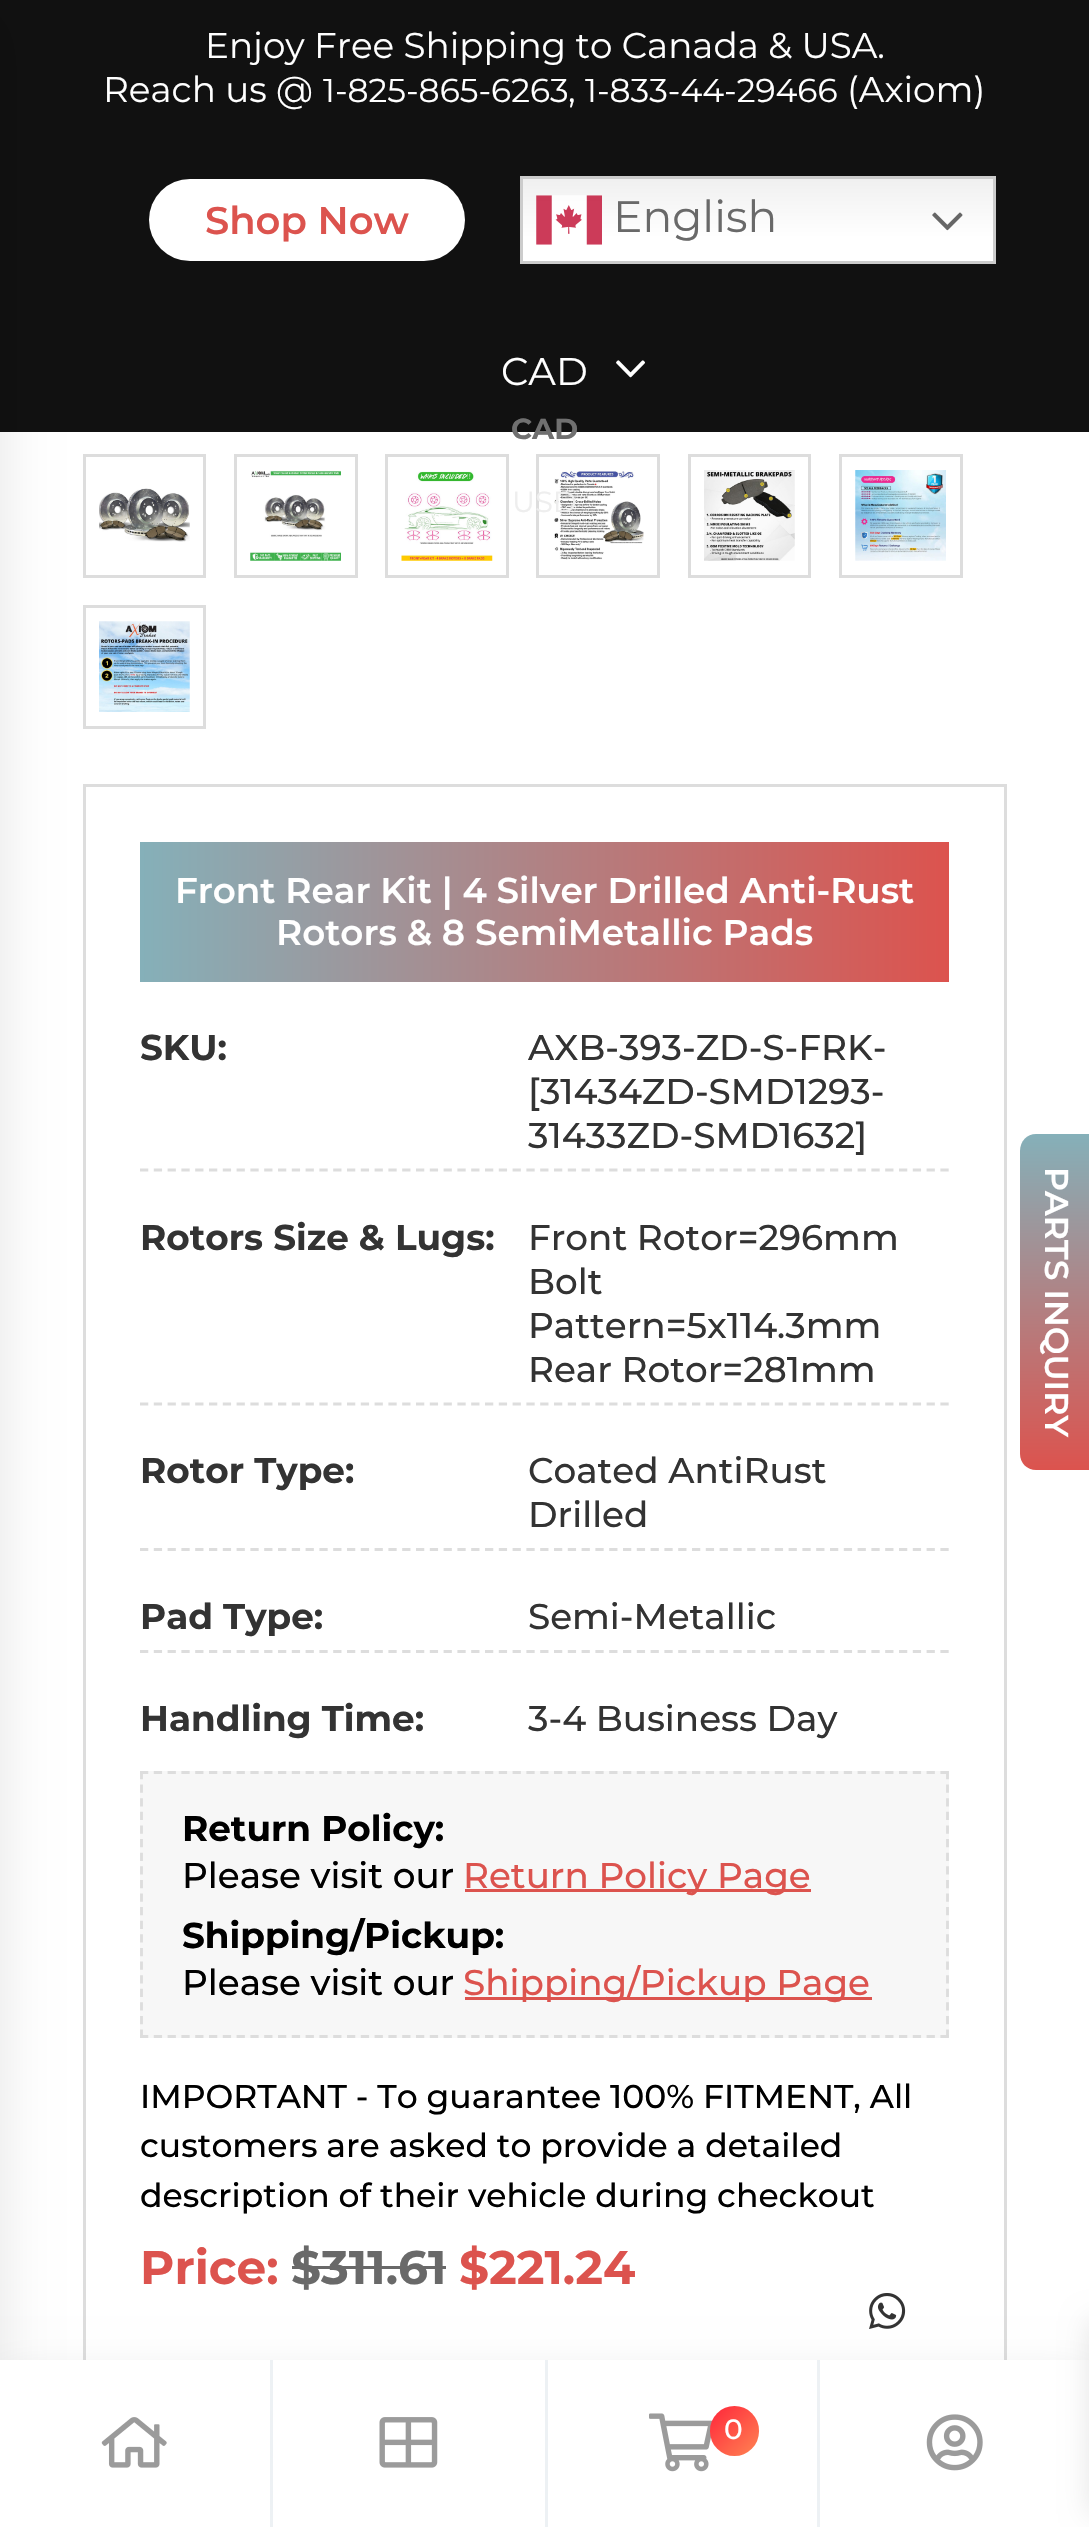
void draw(SkCanvas* canvas) {
	SkPaint fill;
	fill.setAntiAlias(true);
	auto makeFont = [&](const char* family, int weight, float size, bool italic = false) {
		SkFontStyle style(weight, SkFontStyle::kNormal_Width,
			italic ? SkFontStyle::kItalic_Slant : SkFontStyle::kUpright_Slant);
		SkFont result(fontMgr->matchFamilyStyle(family, style), size);
		result.setSubpixel(true);
		return result;
	};
	auto text = [&](const char* s, float x, float y, const SkFont& font) {
		canvas->drawString(s, x, y, font, fill);
	};
	auto box = [&](float l, float t, float r, float b) {
		canvas->drawRect(SkRect::MakeLTRB(l, t, r, b), fill);
	};
	auto roundBox = [&](float l, float t, float r, float b, float radius) {
		canvas->drawRoundRect(SkRect::MakeLTRB(l, t, r, b), radius, radius, fill);
	};
	auto picture = [&](const char* path, float l, float t, float r, float b) {
		auto image = SkImages::DeferredFromEncodedData(SkData::MakeFromFileName(path));
		canvas->drawImageRect(image, SkRect::MakeLTRB(l, t, r, b), SkSamplingOptions());
	};
	canvas->clear(0xFFFFFFFF);
	fill.setColor(0xFF111111);
	box(0, 0, 1089, 432);
	fill.setStyle(SkPaint::kStroke_Style);
	fill.setStrokeWidth(3);
	fill.setColor(0xFFDDDDDD);
	canvas->drawRect(SkRect::MakeLTRB(84.5f, 455.5f, 204.5f, 576.5f), fill);
	canvas->drawRect(SkRect::MakeLTRB(84.5f, 606.5f, 204.5f, 727.5f), fill);
	canvas->drawRect(SkRect::MakeLTRB(84.5f, 785.5f, 1005.5f, 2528.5f), fill);
	fill.setStyle(SkPaint::kFill_Style);
	fill.setColor(0x1A000000);
	fill.setMaskFilter(SkMaskFilter::MakeBlur(kNormal_SkBlurStyle, 27.5f));
	canvas->drawRect(SkRect::MakeLTRB(-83, 14, 0, 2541), fill);
	fill.setMaskFilter(nullptr);
	fill.setColor(0xFFFFFFFF);
	roundBox(149, 179, 465, 261, 41);
	{
		const SkColor colors[] = {0xFFEFEFEF, 0xFFFFFFFF};
		const float stops[] = {0, 0.7f};
		const SkPoint ends[] = {{758, 176}, {758, 264}};
		fill.setShader(SkGradientShader::MakeLinear(ends, colors, stops, 2, SkTileMode::kClamp));
		fill.setAlpha(255);
	}
	box(523, 179, 993, 261);
	fill.setStyle(SkPaint::kStroke_Style);
	fill.setShader(nullptr);
	fill.setColor(0xFFCCCCCC);
	canvas->drawRect(SkRect::MakeLTRB(521.5f, 177.5f, 994.5f, 262.5f), fill);
	picture("image0.png", 536, 195, 602, 245);
	picture("image1.png", 932, 212, 963, 231);
	picture("image2.png", 616, 360, 645, 378);
	picture("image3.png", 99, 488, 190, 542);
	fill.setColor(0xFFDDDDDD);
	canvas->drawRect(SkRect::MakeLTRB(235.5f, 455.5f, 356.5f, 576.5f), fill);
	picture("image4.png", 250, 470, 341, 561);
	canvas->drawRect(SkRect::MakeLTRB(386.5f, 455.5f, 507.5f, 576.5f), fill);
	picture("image5.png", 401, 471, 493, 561);
	canvas->drawRect(SkRect::MakeLTRB(537.5f, 455.5f, 658.5f, 576.5f), fill);
	picture("image6.png", 554, 471, 644, 560);
	canvas->drawRect(SkRect::MakeLTRB(689.5f, 455.5f, 809.5f, 576.5f), fill);
	picture("image7.png", 704, 470, 795, 561);
	canvas->drawRect(SkRect::MakeLTRB(840.5f, 455.5f, 961.5f, 576.5f), fill);
	picture("image8.png", 855, 470, 946, 561);
	picture("image9.png", 99, 621, 190, 712);
	fill.setStyle(SkPaint::kFill_Style);
	{
		const SkColor colors[] = {0xFF85B0B9, 0xFFDC534E};
		const float stops[] = {0, 1};
		const SkPoint ends[] = {{140, 912}, {949, 912}};
		fill.setShader(SkGradientShader::MakeLinear(ends, colors, stops, 2, SkTileMode::kClamp));
		fill.setAlpha(255);
	}
	box(140, 842, 949, 982);
	fill.setStyle(SkPaint::kStroke_Style);
	fill.setStrokeWidth(2.8f);
	fill.setShader(nullptr);
	fill.setColor(0xFFDDDDDD);
	fill.setPathEffect(SkDashPathEffect::Make({{8.25f, 5.55f}}, 0));
	canvas->drawPath(SkPathBuilder().moveTo(140, 1170).lineTo(949, 1170).detach(), fill);
	fill.setPathEffect(nullptr);
	fill.setPathEffect(SkDashPathEffect::Make({{8.25f, 5.55f}}, 0));
	canvas->drawPath(SkPathBuilder().moveTo(140, 1404).lineTo(949, 1404).detach(), fill);
	fill.setPathEffect(nullptr);
	fill.setPathEffect(SkDashPathEffect::Make({{8.25f, 5.55f}}, 0));
	canvas->drawPath(SkPathBuilder().moveTo(140, 1549.5f).lineTo(949, 1549.5f).detach(), fill);
	fill.setPathEffect(nullptr);
	fill.setPathEffect(SkDashPathEffect::Make({{8.25f, 5.55f}}, 0));
	canvas->drawPath(SkPathBuilder().moveTo(140, 1651.5f).lineTo(949, 1651.5f).detach(), fill);
	fill.setPathEffect(nullptr);
	fill.setStyle(SkPaint::kFill_Style);
	fill.setColor(0xFFF7F7F7);
	box(140, 1771, 949, 2038);
	fill.setStyle(SkPaint::kStroke_Style);
	fill.setColor(0xFFDDDDDD);
	fill.setPathEffect(SkDashPathEffect::Make({{8.25f, 5.55f}}, 0));
	canvas->drawPath(SkPathBuilder().moveTo(140, 1772.5f).lineTo(949, 1772.5f).detach(), fill);
	fill.setPathEffect(nullptr);
	fill.setPathEffect(SkDashPathEffect::Make({{8.25f, 5.36f}}, 0));
	canvas->drawPath(SkPathBuilder().moveTo(947.5f, 1771).lineTo(947.5f, 2038).detach(), fill);
	fill.setPathEffect(nullptr);
	fill.setPathEffect(SkDashPathEffect::Make({{8.25f, 5.55f}}, 0));
	canvas->drawPath(SkPathBuilder().moveTo(140, 2036.5f).lineTo(949, 2036.5f).detach(), fill);
	fill.setPathEffect(nullptr);
	fill.setPathEffect(SkDashPathEffect::Make({{8.25f, 5.36f}}, 0));
	canvas->drawPath(SkPathBuilder().moveTo(141.5f, 1771).lineTo(141.5f, 2038).detach(), fill);
	fill.setPathEffect(nullptr);
	fill.setStyle(SkPaint::kFill_Style);
	fill.setColor(0xFFDC534E);
	box(465, 1889, 811, 1892);
	box(465, 1997, 872, 2000);
	fill.setColor(0xFF696969);
	box(292, 2266, 322, 2269);
	box(322, 2266, 446, 2269);
	picture("image10.png", 869, 2293, 906, 2329);
	{
		const SkColor colors[] = {0xFF85B0B9, 0xFFDC534E};
		const float stops[] = {0, 1};
		const SkPoint ends[] = {{1057, 1134}, {1057, 1470}};
		fill.setShader(SkGradientShader::MakeLinear(ends, colors, stops, 2, SkTileMode::kClamp));
		fill.setAlpha(255);
	}
	canvas->drawPath(SkPathBuilder().moveTo(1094, 1134).lineTo(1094, 1470).lineTo(1036, 1470).cubicTo(1027, 1470, 1020, 1463, 1020, 1454).lineTo(1020, 1151).cubicTo(1020, 1141, 1027, 1134, 1036, 1134).close().detach(), fill);
	fill.setShader(nullptr);
	fill.setColor(0x26000000);
	fill.setMaskFilter(SkMaskFilter::MakeBlur(kNormal_SkBlurStyle, 22));
	canvas->drawRect(SkRect::MakeLTRB(0, 2382, 1089, 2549), fill);
	fill.setMaskFilter(nullptr);
	fill.setColor(0xFFFFFFFF);
	box(0, 2360, 1089, 2527);
	fill.setColor(0xFFEDF1F4);
	box(270, 2360, 273, 2527);
	picture("image11.png", 101, 2417, 167, 2468);
	box(545, 2360, 548, 2527);
	picture("image12.png", 379, 2417, 438, 2468);
	box(817, 2360, 820, 2527);
	picture("image13.png", 649, 2413, 713, 2472);
	{
		const SkColor colors[] = {0xFFFF253A, 0xFFFF8453};
		const float stops[] = {0, 1};
		const SkPoint ends[] = {{710, 2406}, {759, 2456}};
		fill.setShader(SkGradientShader::MakeLinear(ends, colors, stops, 2, SkTileMode::kClamp));
		fill.setAlpha(255);
	}
	roundBox(710, 2406, 759, 2456, 24.5f);
	picture("image14.png", 926, 2414, 983, 2471);
	fill.setShader(nullptr);
	fill.setColor(0x1A000000);
	fill.setMaskFilter(SkMaskFilter::MakeBlur(kNormal_SkBlurStyle, 14));
	canvas->drawRect(SkRect::MakeLTRB(1089, 2321, 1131, 2514), fill);
	fill.setMaskFilter(nullptr);
	auto font1 = makeFont("Montserrat", 400, 35.75f);
	fill.setColor(0xFFFFFFFF);
	text("Enjoy Free Shipping to Canada & USA.", 205, 58, font1);
	text("Reach us @", 103, 102, font1);
	auto font2 = makeFont("Montserrat", 400, 33);
	text("1-825-865-6263", 323, 102, font2);
	text(",", 568, 102, font1);
	text("1-833-44-29466", 585, 102, font2);
	text("(Axiom)", 847, 102, font1);
	auto font3 = makeFont("Montserrat", 600, 38.5f);
	fill.setColor(0xFFDC534E);
	text("Shop Now", 205, 234, font3);
	auto font4 = makeFont("Montserrat", 400, 44);
	fill.setColor(0xFF696969);
	text("English", 613, 232, font4);
	auto font5 = makeFont("Montserrat", 400, 38.5f);
	fill.setColor(0xFFFFFFFF);
	text("CAD", 501, 385, font5);
	auto font6 = makeFont("Montserrat", 700, 29);
	fill.setColor(0xFF707070);
	text("CAD", 511, 439, font6);
	auto font7 = makeFont("Montserrat", 400, 29);
	fill.setColor(0xFFEEEEEE);
	text("USD", 512, 512, font7);
	auto font8 = makeFont("Montserrat", 600, 35.75f);
	fill.setColor(0xFFFFFFFF);
	text("Front Rear Kit | 4 Silver Drilled Anti-Rust", 175, 903, font8);
	text("Rotors & 8 SemiMetallic Pads", 276, 945, font8);
	auto font9 = makeFont("Montserrat", 700, 35.75f);
	fill.setColor(0xFF333333);
	text("SKU:", 140, 1060, font9);
	auto font10 = makeFont("Montserrat", 500, 35.75f);
	text("AXB-393-ZD-S-FRK-", 528, 1060, font10);
	text("[31434ZD-SMD1293-", 528, 1104, font10);
	text("31433ZD-SMD1632]", 528, 1148, font10);
	text("Rotors Size & Lugs:", 140, 1250, font9);
	text("Front Rotor=296mm", 528, 1250, font10);
	text("Bolt", 528, 1294, font10);
	text("Pattern=5x114.3mm", 528, 1338, font10);
	text("Rear Rotor=281mm", 528, 1382, font10);
	text("Rotor Type:", 140, 1483, font9);
	text("Coated AntiRust", 528, 1483, font10);
	text("Drilled", 528, 1527, font10);
	text("Pad Type:", 140, 1629, font9);
	text("Semi-Metallic", 528, 1629, font10);
	text("Handling Time:", 140, 1731, font9);
	text("3-4 Business Day", 528, 1731, font10);
	fill.setColor(0xFF000000);
	text("Return Policy:", 182, 1841, font9);
	text("Please visit our", 182, 1888, font10);
	fill.setColor(0xFFDC534E);
	text("Return Policy Page", 463, 1888, font10);
	fill.setColor(0xFF000000);
	text("Shipping/Pickup:", 182, 1948, font9);
	text("Please visit our", 182, 1995, font10);
	fill.setColor(0xFFDC534E);
	text("Shipping/Pickup Page", 463, 1995, font10);
	auto font11 = makeFont("Montserrat", 500, 33);
	fill.setColor(0xFF000000);
	text("IMPORTANT - To guarantee 100% FITMENT, All", 140, 2108, font11);
	text("customers are asked to provide a detailed", 140, 2157, font11);
	text("description of their vehicle during checkout", 140, 2207, font11);
	auto font12 = makeFont("Montserrat", 700, 47);
	fill.setColor(0xFFDC534E);
	text("Price:", 140, 2284, font12);
	fill.setColor(0xFF696969);
	text("$", 291, 2284, font12);
	text("311.61", 321, 2284, font12);
	fill.setColor(0xFFDC534E);
	text("$221.24", 459, 2284, font12);
	auto font13 = makeFont("Montserrat", 600, 33);
	fill.setColor(0xFFFFFFFF);
	canvas->save();
	canvas->rotate(90, 1045, 1167);
	text("PARTS INQUIRY", 1045, 1167, font13);
	canvas->restore();
	auto font14 = makeFont("Montserrat", 500, 28);
	text("0", 724, 2439, font14);
}
